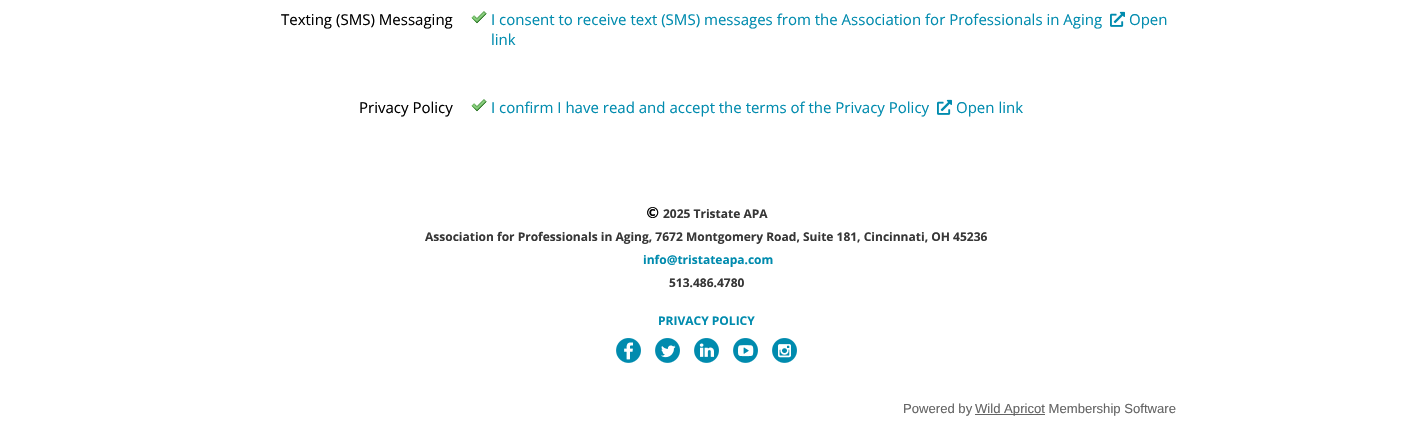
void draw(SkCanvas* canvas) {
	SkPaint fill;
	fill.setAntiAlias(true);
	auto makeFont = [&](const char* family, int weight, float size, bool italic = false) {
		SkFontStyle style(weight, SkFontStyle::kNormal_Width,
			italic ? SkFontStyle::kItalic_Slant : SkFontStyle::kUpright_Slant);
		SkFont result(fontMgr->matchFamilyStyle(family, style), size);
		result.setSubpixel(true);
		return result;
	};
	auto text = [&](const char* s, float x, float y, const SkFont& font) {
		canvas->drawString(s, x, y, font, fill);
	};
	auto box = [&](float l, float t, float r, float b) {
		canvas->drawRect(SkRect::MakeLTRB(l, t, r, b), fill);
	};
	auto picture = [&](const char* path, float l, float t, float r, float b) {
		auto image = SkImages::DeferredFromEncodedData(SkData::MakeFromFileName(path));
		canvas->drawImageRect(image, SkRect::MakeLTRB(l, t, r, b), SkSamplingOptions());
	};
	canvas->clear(0xFFFFFFFF);
	picture("image0.png", 471, 11, 487, 24);
	picture("image1.png", 1110, 11, 1125, 27);
	picture("image0.png", 471, 99, 487, 112);
	picture("image1.png", 937, 99, 952, 115);
	picture("image2.png", 616, 338, 641, 363);
	picture("image3.png", 655, 338, 680, 363);
	picture("image4.png", 694, 338, 719, 363);
	picture("image5.png", 733, 338, 758, 363);
	picture("image6.png", 772, 338, 797, 363);
	fill.setColor(0xFF646464);
	box(975, 414, 1045, 415);
	auto font1 = makeFont("Open Sans", 400, 15);
	fill.setColor(0xFF000000);
	text("Texting (SMS) Messaging", 281, 25, font1);
	fill.setColor(0xFF008BAE);
	text("I consent to receive text (SMS) messages from the Association for Professionals in Aging", 491, 25, font1);
	text("Open", 1129, 25, font1);
	text("link", 491, 45, font1);
	fill.setColor(0xFF000000);
	text("Privacy Policy", 359, 113, font1);
	fill.setColor(0xFF008BAE);
	text("I confirm I have read and accept the terms of the Privacy Policy", 491, 113, font1);
	text("Open link", 956, 113, font1);
	auto font2 = makeFont("Carlito", 700, 16);
	fill.setColor(0xFF000000);
	text("©", 646, 218, font2);
	auto font3 = makeFont("Open Sans", 700, 12);
	fill.setColor(0xFF373737);
	text("2025 Tristate APA", 663, 218, font3);
	text("Association for Professionals in Aging, 7672 Montgomery Road, Suite 181, Cincinnati, OH 45236", 425, 241, font3);
	fill.setColor(0xFF008BAE);
	text("info@tristateapa.com", 643, 264, font3);
	fill.setColor(0xFF373737);
	text("513.486.4780", 669, 287, font3);
	fill.setColor(0xFF008BAE);
	text("PRIVACY POLICY", 658, 325, font3);
	auto font4 = makeFont("Liberation Sans", 400, 13.1f);
	fill.setColor(0xFF646464);
	text("Powered by", 903, 413, font4);
	text("Wild Apricot Membership Software", 975, 413, font4);
}
